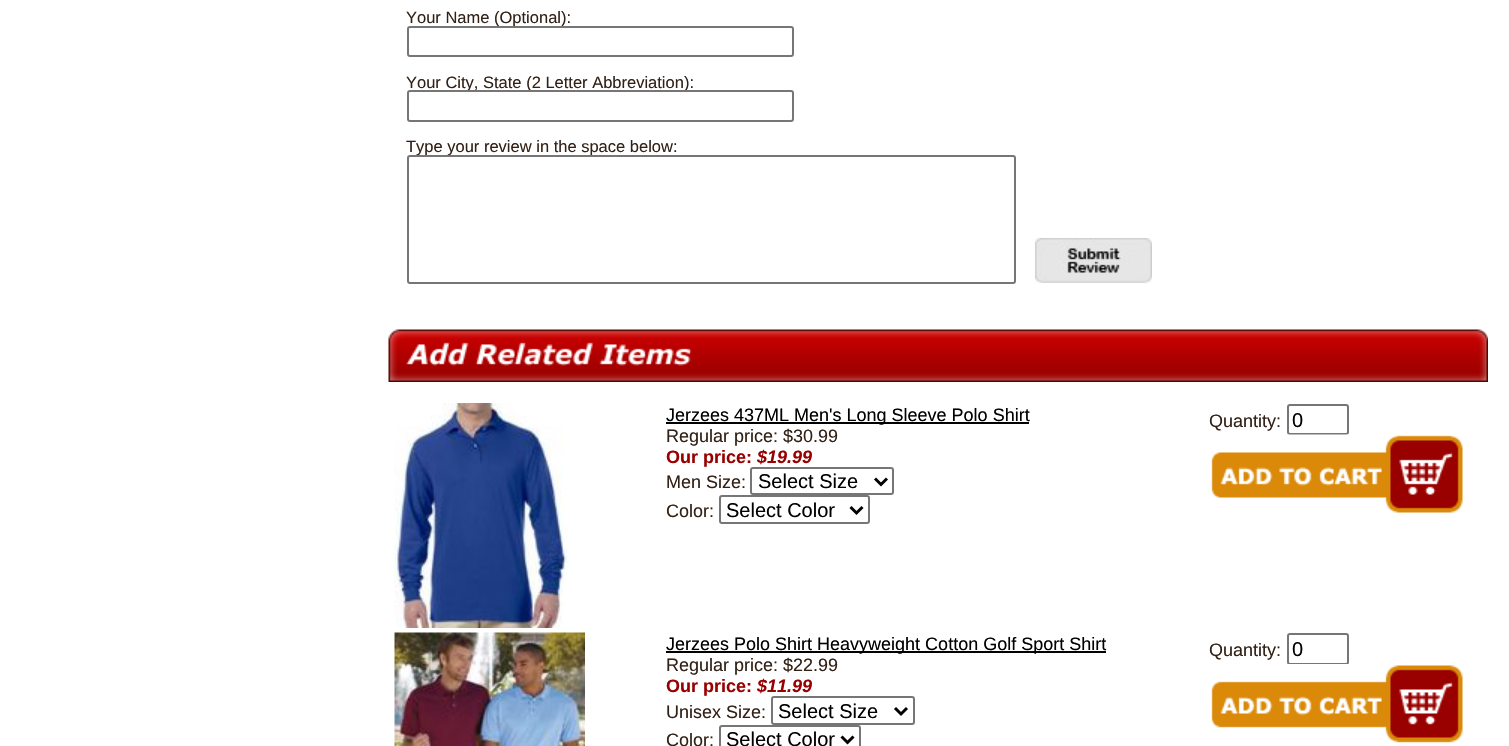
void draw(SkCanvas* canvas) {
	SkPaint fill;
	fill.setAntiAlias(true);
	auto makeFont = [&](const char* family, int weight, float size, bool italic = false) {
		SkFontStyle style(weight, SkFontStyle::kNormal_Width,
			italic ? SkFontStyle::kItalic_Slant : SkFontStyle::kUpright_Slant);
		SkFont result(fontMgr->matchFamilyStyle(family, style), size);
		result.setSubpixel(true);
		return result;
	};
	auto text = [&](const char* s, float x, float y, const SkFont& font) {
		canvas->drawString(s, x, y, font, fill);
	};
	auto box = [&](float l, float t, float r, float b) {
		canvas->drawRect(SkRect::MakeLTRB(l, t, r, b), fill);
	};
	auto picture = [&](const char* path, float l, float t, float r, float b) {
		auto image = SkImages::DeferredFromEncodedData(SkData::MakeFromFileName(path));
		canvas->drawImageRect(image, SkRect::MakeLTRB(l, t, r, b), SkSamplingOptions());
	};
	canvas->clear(0xFFFFFFFF);
	picture("image0.png", 1035, 238, 1152, 283);
	picture("image1.png", 388, 329, 1488, 382);
	picture("image2.png", 394, 403, 569, 628);
	fill.setColor(0xFF000000);
	box(666, 422, 1029, 424);
	fill.setStyle(SkPaint::kStroke_Style);
	fill.setStrokeWidth(2);
	fill.setColor(0xFF767676);
	canvas->drawRoundRect(SkRect::MakeLTRB(751, 468, 893, 494), 2, 2, fill);
	fill.setStrokeWidth(3);
	fill.setColor(0xFF000000);
	canvas->drawPath(SkPathBuilder().moveTo(875, 478.5f).lineTo(881, 484.5f).lineTo(887, 478.5f).detach(), fill);
	fill.setStrokeWidth(2);
	fill.setColor(0xFF767676);
	canvas->drawRoundRect(SkRect::MakeLTRB(720, 496, 869, 523), 2, 2, fill);
	fill.setStrokeWidth(3);
	fill.setColor(0xFF000000);
	canvas->drawPath(SkPathBuilder().moveTo(850.5f, 507).lineTo(856.5f, 513).lineTo(862.5f, 507).detach(), fill);
	fill.setStrokeWidth(2);
	fill.setColor(0xFF767676);
	canvas->drawRoundRect(SkRect::MakeLTRB(1288, 405, 1348, 434), 2, 2, fill);
	picture("image3.png", 1211, 434, 1463, 513);
	picture("image4.png", 394, 632, 585, 746);
	fill.setStyle(SkPaint::kFill_Style);
	fill.setColor(0xFF000000);
	box(666, 651, 1106, 653);
	fill.setStyle(SkPaint::kStroke_Style);
	fill.setColor(0xFF767676);
	canvas->drawRoundRect(SkRect::MakeLTRB(772, 697, 914, 724), 2, 2, fill);
	fill.setStrokeWidth(3);
	fill.setColor(0xFF000000);
	canvas->drawPath(SkPathBuilder().moveTo(895, 708).lineTo(901, 714).lineTo(907, 708).detach(), fill);
	fill.setStrokeWidth(2);
	fill.setColor(0xFF767676);
	canvas->drawRoundRect(SkRect::MakeLTRB(720, 726, 860, 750), 2, 2, fill);
	fill.setStrokeWidth(3);
	fill.setColor(0xFF000000);
	canvas->drawPath(SkPathBuilder().moveTo(841.5f, 736.5f).lineTo(847.5f, 742.5f).lineTo(853.5f, 736.5f).detach(), fill);
	fill.setStrokeWidth(2);
	fill.setColor(0xFF767676);
	canvas->drawRoundRect(SkRect::MakeLTRB(1288, 634, 1348, 664), 2, 2, fill);
	picture("image5.png", 1211, 664, 1463, 743);
	auto font1 = makeFont("Liberation Sans", 400, 16.5f);
	fill.setStyle(SkPaint::kFill_Style);
	fill.setColor(0xFF322116);
	text("Your Name (Optional):", 406, 23, font1);
	fill.setColor(0xFFFFFFFF);
	canvas->drawRoundRect(SkRect::MakeLTRB(408, 27, 793, 56), 2, 2, fill);
	fill.setStyle(SkPaint::kStroke_Style);
	fill.setColor(0xFF767676);
	canvas->drawRoundRect(SkRect::MakeLTRB(408, 27, 793, 56), 2, 2, fill);
	fill.setStyle(SkPaint::kFill_Style);
	fill.setColor(0xFF322116);
	text("Your City, State (2 Letter Abbreviation):", 406, 88, font1);
	fill.setColor(0xFFFFFFFF);
	canvas->drawRoundRect(SkRect::MakeLTRB(408, 91, 793, 121), 2, 2, fill);
	fill.setStyle(SkPaint::kStroke_Style);
	fill.setColor(0xFF767676);
	canvas->drawRoundRect(SkRect::MakeLTRB(408, 91, 793, 121), 2, 2, fill);
	fill.setStyle(SkPaint::kFill_Style);
	fill.setColor(0xFF322116);
	text("Type your review in the space below:", 406, 152, font1);
	fill.setColor(0xFFFFFFFF);
	canvas->drawRoundRect(SkRect::MakeLTRB(408, 156, 1015, 283), 2, 2, fill);
	fill.setStyle(SkPaint::kStroke_Style);
	fill.setColor(0xFF767676);
	canvas->drawRoundRect(SkRect::MakeLTRB(408, 156, 1015, 283), 2, 2, fill);
	auto font2 = makeFont("Liberation Sans", 400, 18);
	fill.setStyle(SkPaint::kFill_Style);
	fill.setColor(0xFF000000);
	text("Jerzees 437ML Men's Long Sleeve Polo Shirt", 666, 421, font2);
	fill.setColor(0xFF322116);
	text("Regular price: $30.99", 666, 442, font2);
	auto font3 = makeFont("Liberation Sans", 700, 18);
	fill.setColor(0xFF990000);
	text("Our price:", 666, 463, font3);
	auto font4 = makeFont("Liberation Sans", 700, 18, true);
	text("$19.99", 757, 463, font4);
	fill.setColor(0xFF322116);
	text("Men Size:", 666, 488, font2);
	auto font5 = makeFont("Liberation Sans", 400, 20);
	fill.setColor(0xFF000000);
	text("Select Size", 758, 488, font5);
	fill.setColor(0xFF322116);
	text("Color:", 666, 517, font2);
	fill.setColor(0xFF000000);
	text("Select Color", 726, 517, font5);
	fill.setColor(0xFF322116);
	text("Quantity:", 1209, 427, font2);
	fill.setColor(0xFF000000);
	text("0", 1292, 427, font5);
	text("Jerzees Polo Shirt Heavyweight Cotton Golf Sport Shirt", 666, 650, font2);
	fill.setColor(0xFF322116);
	text("Regular price: $22.99", 666, 671, font2);
	fill.setColor(0xFF990000);
	text("Our price:", 666, 692, font3);
	text("$11.99", 757, 692, font4);
	fill.setColor(0xFF322116);
	text("Unisex Size:", 666, 718, font2);
	fill.setColor(0xFF000000);
	text("Select Size", 778, 718, font5);
	fill.setColor(0xFF322116);
	text("Color:", 666, 746, font2);
	fill.setColor(0xFF000000);
	text("Select Color", 726, 746, font5);
	fill.setColor(0xFF322116);
	text("Quantity:", 1209, 656, font2);
	fill.setColor(0xFF000000);
	text("0", 1292, 656, font5);
}
